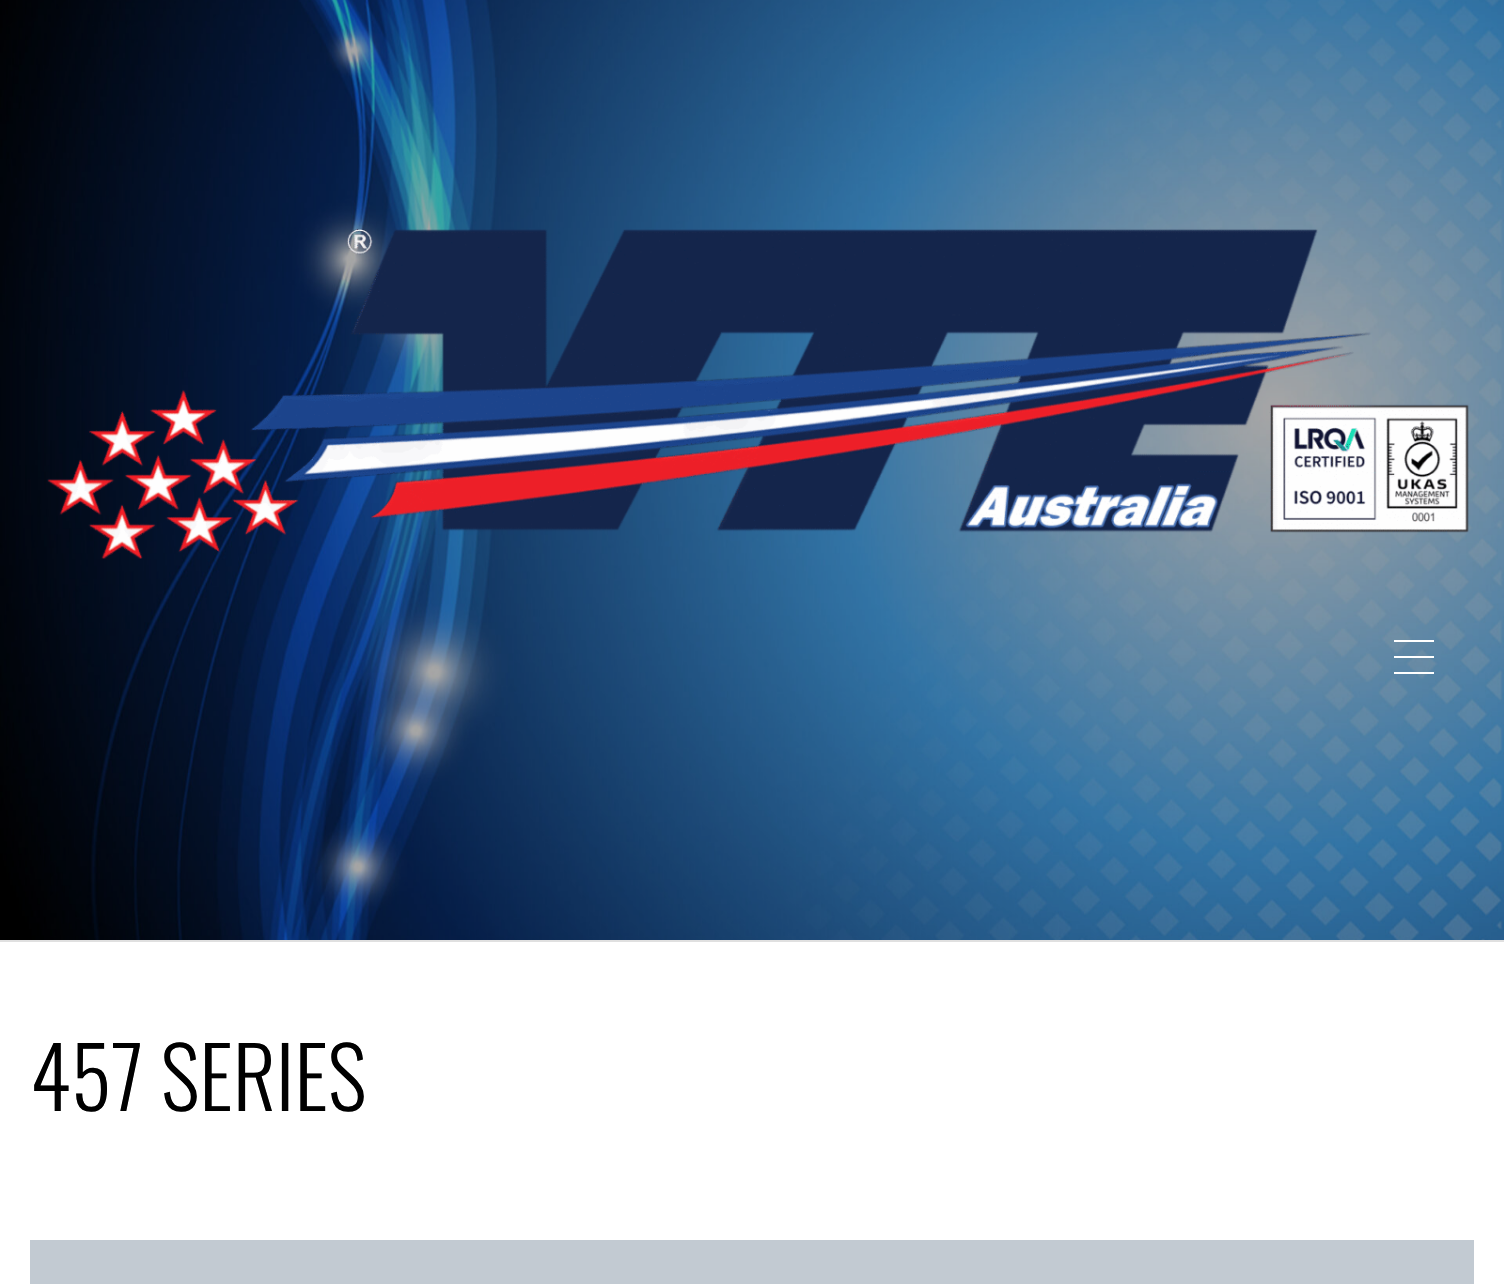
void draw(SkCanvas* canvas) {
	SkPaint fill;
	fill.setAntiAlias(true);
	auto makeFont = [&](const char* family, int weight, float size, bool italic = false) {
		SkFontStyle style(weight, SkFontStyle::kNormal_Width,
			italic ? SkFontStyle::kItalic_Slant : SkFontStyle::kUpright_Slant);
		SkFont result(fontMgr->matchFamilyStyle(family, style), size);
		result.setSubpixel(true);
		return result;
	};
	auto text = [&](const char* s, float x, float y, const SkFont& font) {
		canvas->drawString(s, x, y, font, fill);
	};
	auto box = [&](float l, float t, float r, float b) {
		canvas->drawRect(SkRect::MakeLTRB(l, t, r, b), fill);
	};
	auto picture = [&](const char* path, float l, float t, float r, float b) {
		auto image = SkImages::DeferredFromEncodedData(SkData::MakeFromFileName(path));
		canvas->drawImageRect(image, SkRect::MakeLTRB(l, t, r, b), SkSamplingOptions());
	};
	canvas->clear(0xFFFFFFFF);
	picture("image0.png", 0, 0, 1504, 940);
	fill.setColor(0xFFE0E0E0);
	box(0, 940, 1504, 942);
	picture("image1.png", 47, 228, 1469, 559);
	fill.setColor(0xFFFFFFFF);
	box(1394, 656, 1434, 658);
	box(1394, 640, 1434, 642);
	box(1394, 672, 1434, 674);
	fill.setColor(0xFFC2CAD2);
	box(30, 1240, 1474, 1284);
	auto font1 = makeFont("Oswald", 300, 84);
	fill.setColor(0xFF000000);
	text("457 SERIES", 30, 1111, font1);
}
